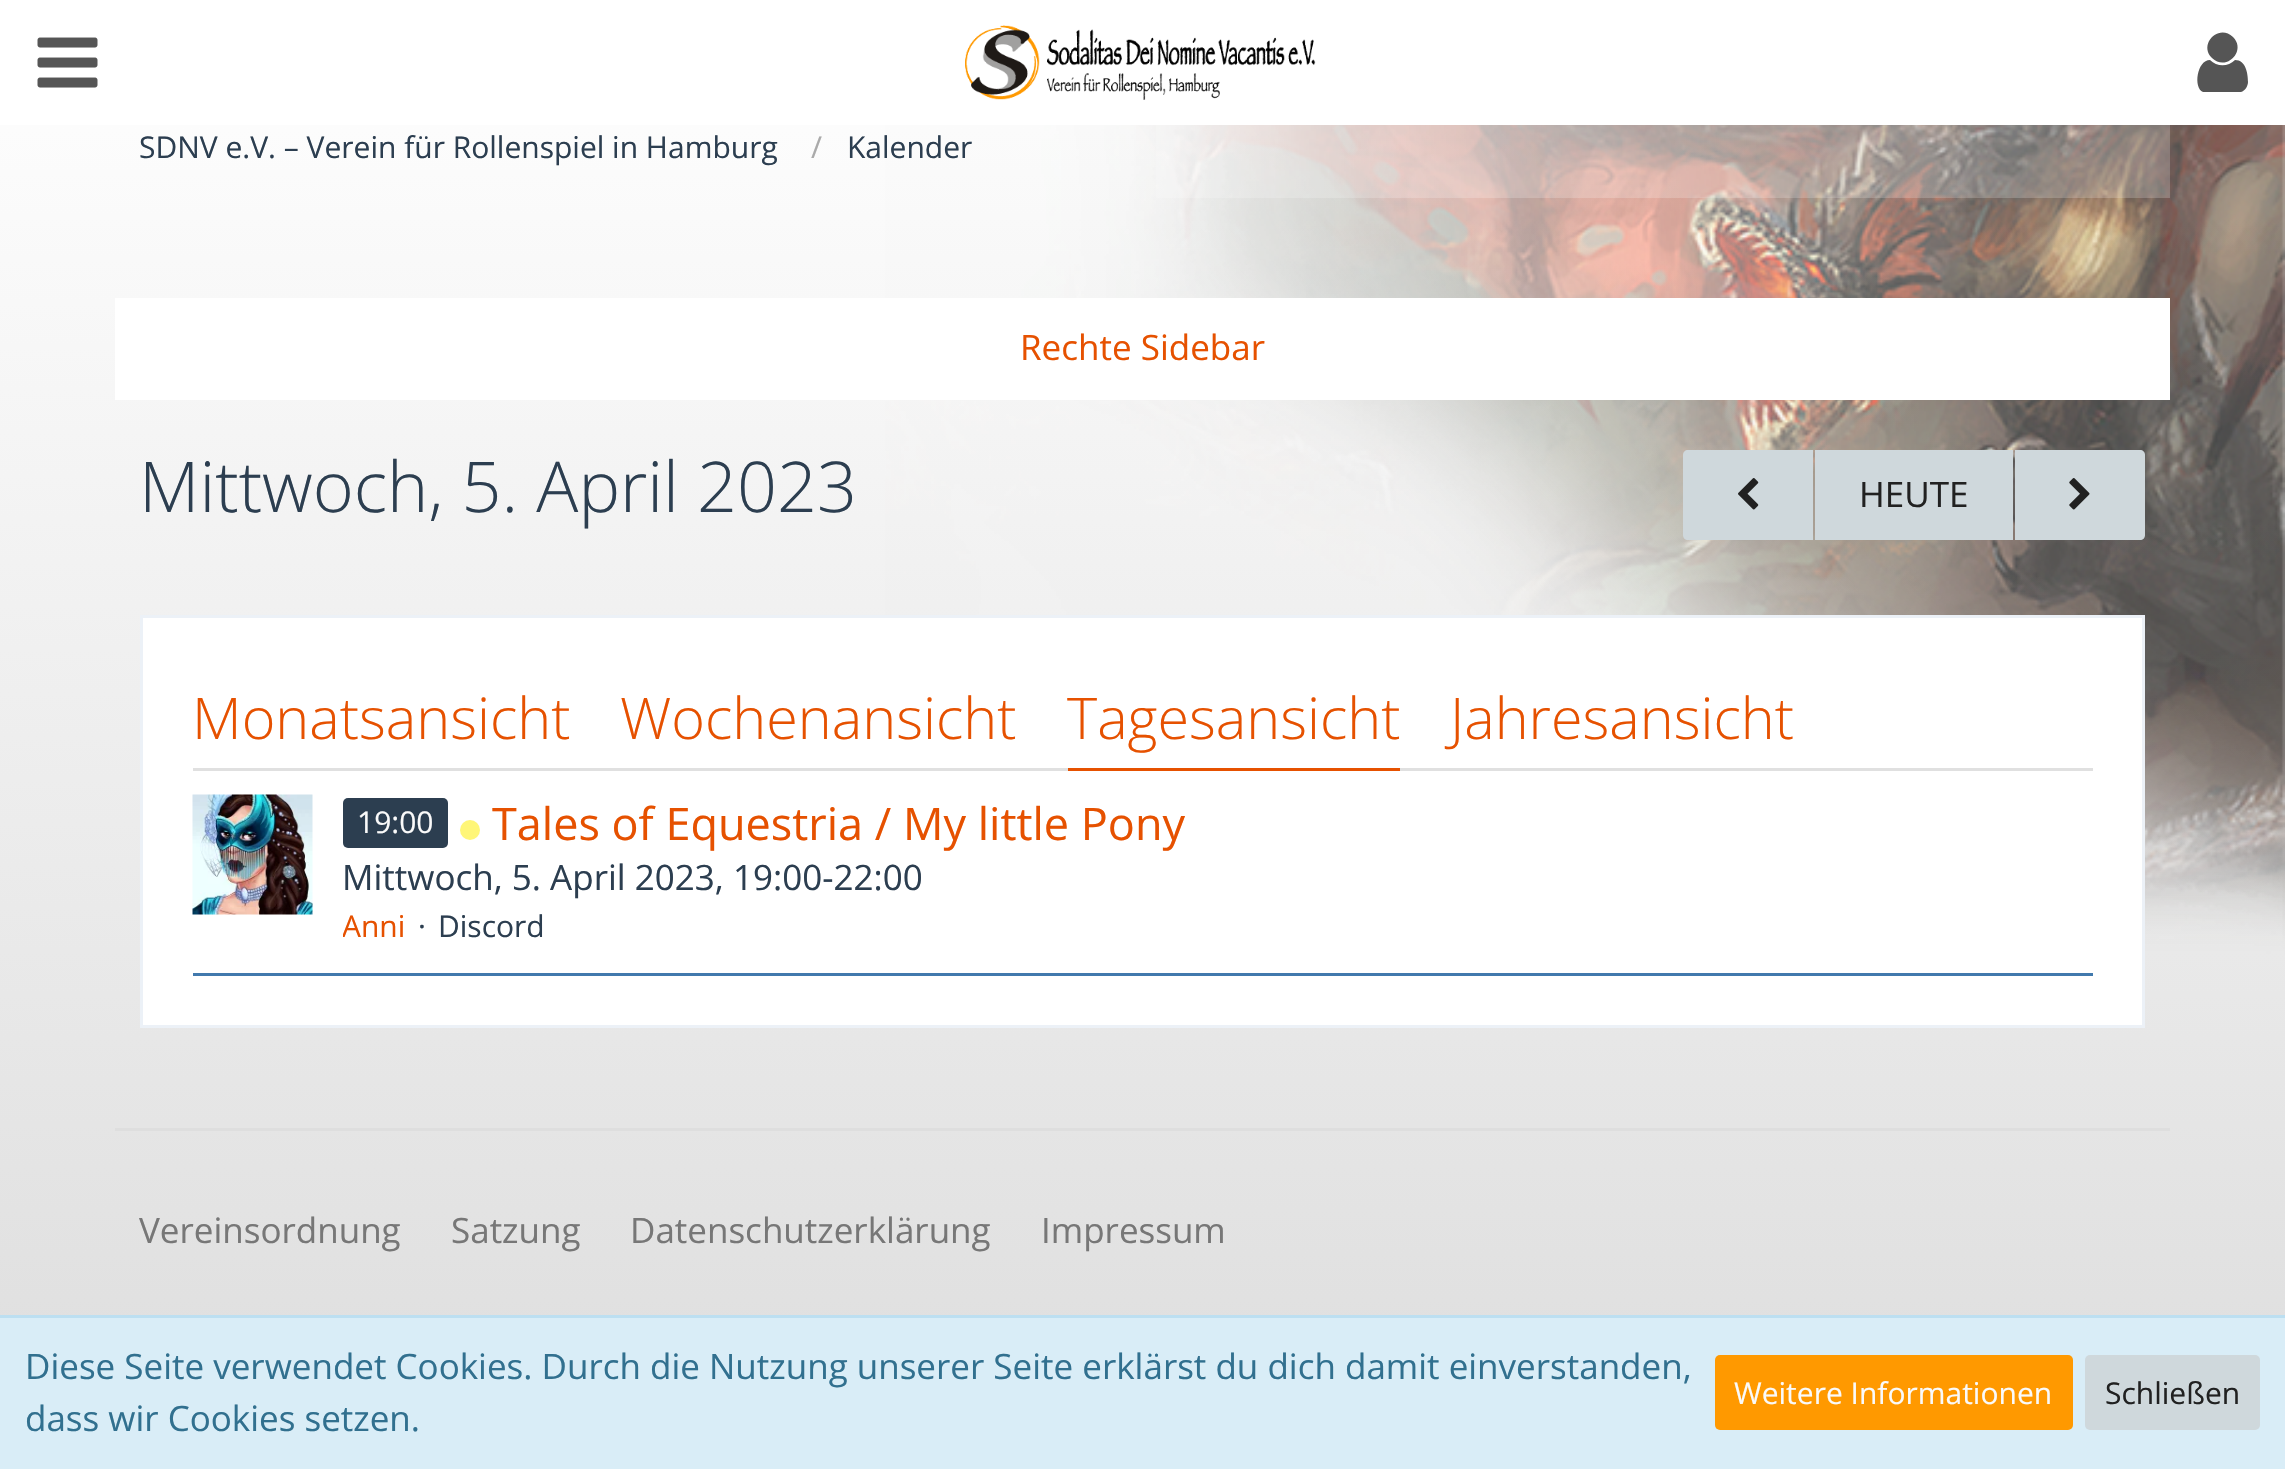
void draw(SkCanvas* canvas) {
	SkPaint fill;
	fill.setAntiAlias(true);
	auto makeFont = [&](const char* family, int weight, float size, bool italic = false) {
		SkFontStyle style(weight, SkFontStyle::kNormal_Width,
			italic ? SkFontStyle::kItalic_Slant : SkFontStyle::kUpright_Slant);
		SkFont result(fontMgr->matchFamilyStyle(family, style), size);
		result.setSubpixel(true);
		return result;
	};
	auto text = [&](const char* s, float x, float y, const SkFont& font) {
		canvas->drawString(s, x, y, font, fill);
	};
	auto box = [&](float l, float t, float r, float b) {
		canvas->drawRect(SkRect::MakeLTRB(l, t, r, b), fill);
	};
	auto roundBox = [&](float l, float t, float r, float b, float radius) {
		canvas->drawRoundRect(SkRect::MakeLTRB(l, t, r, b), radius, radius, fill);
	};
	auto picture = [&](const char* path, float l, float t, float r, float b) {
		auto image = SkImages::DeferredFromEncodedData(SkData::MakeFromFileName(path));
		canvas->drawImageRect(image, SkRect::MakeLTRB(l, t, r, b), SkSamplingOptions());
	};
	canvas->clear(0xFFFFFFFF);
	picture("image0.png", 0, 125, 2285, 1315);
	picture("image1.png", 965, 25, 1316, 100);
	picture("image2.png", 37, 37, 98, 88);
	fill.setColor(0xFF555555);
	canvas->drawPath(SkPathBuilder().moveTo(2248, 82).cubicTo(2248, 86, 2245, 91, 2241, 92).lineTo(2211, 92).lineTo(2203, 92).cubicTo(2193, 88, 2197, 60, 2210, 60).cubicTo(2217, 67, 2228, 67, 2235, 60).cubicTo(2246, 60, 2248, 74, 2248, 82).close().moveTo(2233, 37).cubicTo(2247, 51, 2226, 72, 2212, 58).cubicTo(2198, 44, 2219, 23, 2233, 37).close().detach(), fill);
	fill.setColor(0x33FFFFFF);
	box(1156, 125, 2170, 198);
	fill.setColor(0xFFFFFFFF);
	box(115, 298, 2170, 400);
	fill.setColor(0xFFCFD8DC);
	canvas->drawPath(SkPathBuilder().moveTo(1688, 450).lineTo(1813, 450).lineTo(1813, 540).lineTo(1688, 540).cubicTo(1685, 540, 1683, 538, 1683, 535).lineTo(1683, 455).cubicTo(1683, 452, 1685, 450, 1688, 450).close().detach(), fill);
	picture("image3.png", 1738, 478, 1759, 510);
	box(1815, 450, 2013, 540);
	canvas->drawPath(SkPathBuilder().moveTo(2015, 450).lineTo(2140, 450).cubicTo(2143, 450, 2145, 452, 2145, 455).lineTo(2145, 535).cubicTo(2145, 538, 2143, 540, 2140, 540).lineTo(2015, 540).close().detach(), fill);
	picture("image4.png", 2069, 478, 2090, 510);
	fill.setColor(0xFFFFFFFF);
	canvas->drawRect(SkRect::MakeLTRB(141.5f, 616.5f, 2143.5f, 1026.5f), fill);
	fill.setStyle(SkPaint::kStroke_Style);
	fill.setStrokeWidth(3);
	fill.setColor(0xFFECF1F7);
	canvas->drawRect(SkRect::MakeLTRB(141.5f, 616.5f, 2143.5f, 1026.5f), fill);
	fill.setStyle(SkPaint::kFill_Style);
	fill.setColor(0xFFE0E0E0);
	box(193, 768, 2093, 771);
	fill.setColor(0xFFE65100);
	box(1068, 768, 1400, 771);
	fill.setColor(0xFF4179AD);
	box(193, 973, 2093, 976);
	picture("image5.png", 192, 794, 313, 915);
	fill.setColor(0xFF2C3E50);
	roundBox(343, 798, 448, 848, 5);
	fill.setColor(0xFFFFF677);
	canvas->drawCircle(470, 830, 10, fill);
	fill.setColor(0xFFDEDEDE);
	box(115, 1128, 2170, 1131);
	fill.setColor(0xFFD9EDF7);
	box(0, 1318, 2285, 1469);
	fill.setColor(0xFFBCDFF1);
	box(0, 1315, 2285, 1318);
	fill.setColor(0xFFFF9900);
	roundBox(1715, 1355, 2073, 1430, 5);
	fill.setColor(0xFFCFD8DC);
	roundBox(2085, 1355, 2260, 1430, 5);
	auto font1 = makeFont("Open Sans", 400, 30);
	fill.setColor(0xFF2C3E50);
	text("SDNV e.V. – Verein für Rollenspiel in Hamburg", 139, 158, font1);
	fill.setColor(0xFFAAAAAA);
	text("/", 811, 158, font1);
	fill.setColor(0xFF2C3E50);
	text("Kalender", 847, 158, font1);
	auto font2 = makeFont("Open Sans", 400, 35);
	fill.setColor(0xFFE65100);
	text("Rechte Sidebar", 1020, 360, font2);
	auto font3 = makeFont("Open Sans", 300, 70);
	fill.setColor(0xFF2C3E50);
	text("Mittwoch, 5. April 2023", 139, 512, font3);
	fill.setColor(0xFF212121);
	text("HEUTE", 1859, 507, font2);
	auto font4 = makeFont("Open Sans", 300, 57.5f);
	fill.setColor(0xFFE65100);
	text("Monatsansicht", 192, 739, font4);
	text("Wochenansicht", 620, 739, font4);
	text("Tagesansicht", 1067, 739, font4);
	text("Jahresansicht", 1450, 739, font4);
	fill.setColor(0xFFFAFAFA);
	text("19:00", 357, 833, font1);
	auto font5 = makeFont("Open Sans", 400, 45);
	fill.setColor(0xFFE65100);
	text("Tales of Equestria / My little Pony", 492, 840, font5);
	fill.setColor(0xFF2C3E50);
	text("Mittwoch, 5. April 2023, 19:00-22:00", 342, 890, font2);
	canvas->save();
	canvas->clipRect(SkRect::MakeLTRB(343, 795, 2093, 948));
	fill.setColor(0xFFE65100);
	text("Anni", 342, 937, font1);
	canvas->restore();
	fill.setColor(0xFF2C3E50);
	text("·", 418, 937, font1);
	text("Discord", 438, 937, font1);
	fill.setColor(0xFF777777);
	text("Vereinsordnung", 139, 1243, font2);
	text("Satzung", 451, 1243, font2);
	text("Datenschutzerklärung", 630, 1243, font2);
	text("Impressum", 1041, 1243, font2);
	fill.setColor(0xFF31708F);
	text("Diese Seite verwendet Cookies. Durch die Nutzung unserer Seite erklärst du dich damit einverstanden,", 25, 1379, font2);
	text("dass wir Cookies setzen.", 25, 1431, font2);
	fill.setColor(0xFFFAFAFA);
	text("Weitere Informationen", 1734, 1404, font1);
	fill.setColor(0xFF212121);
	text("Schließen", 2105, 1404, font1);
}
